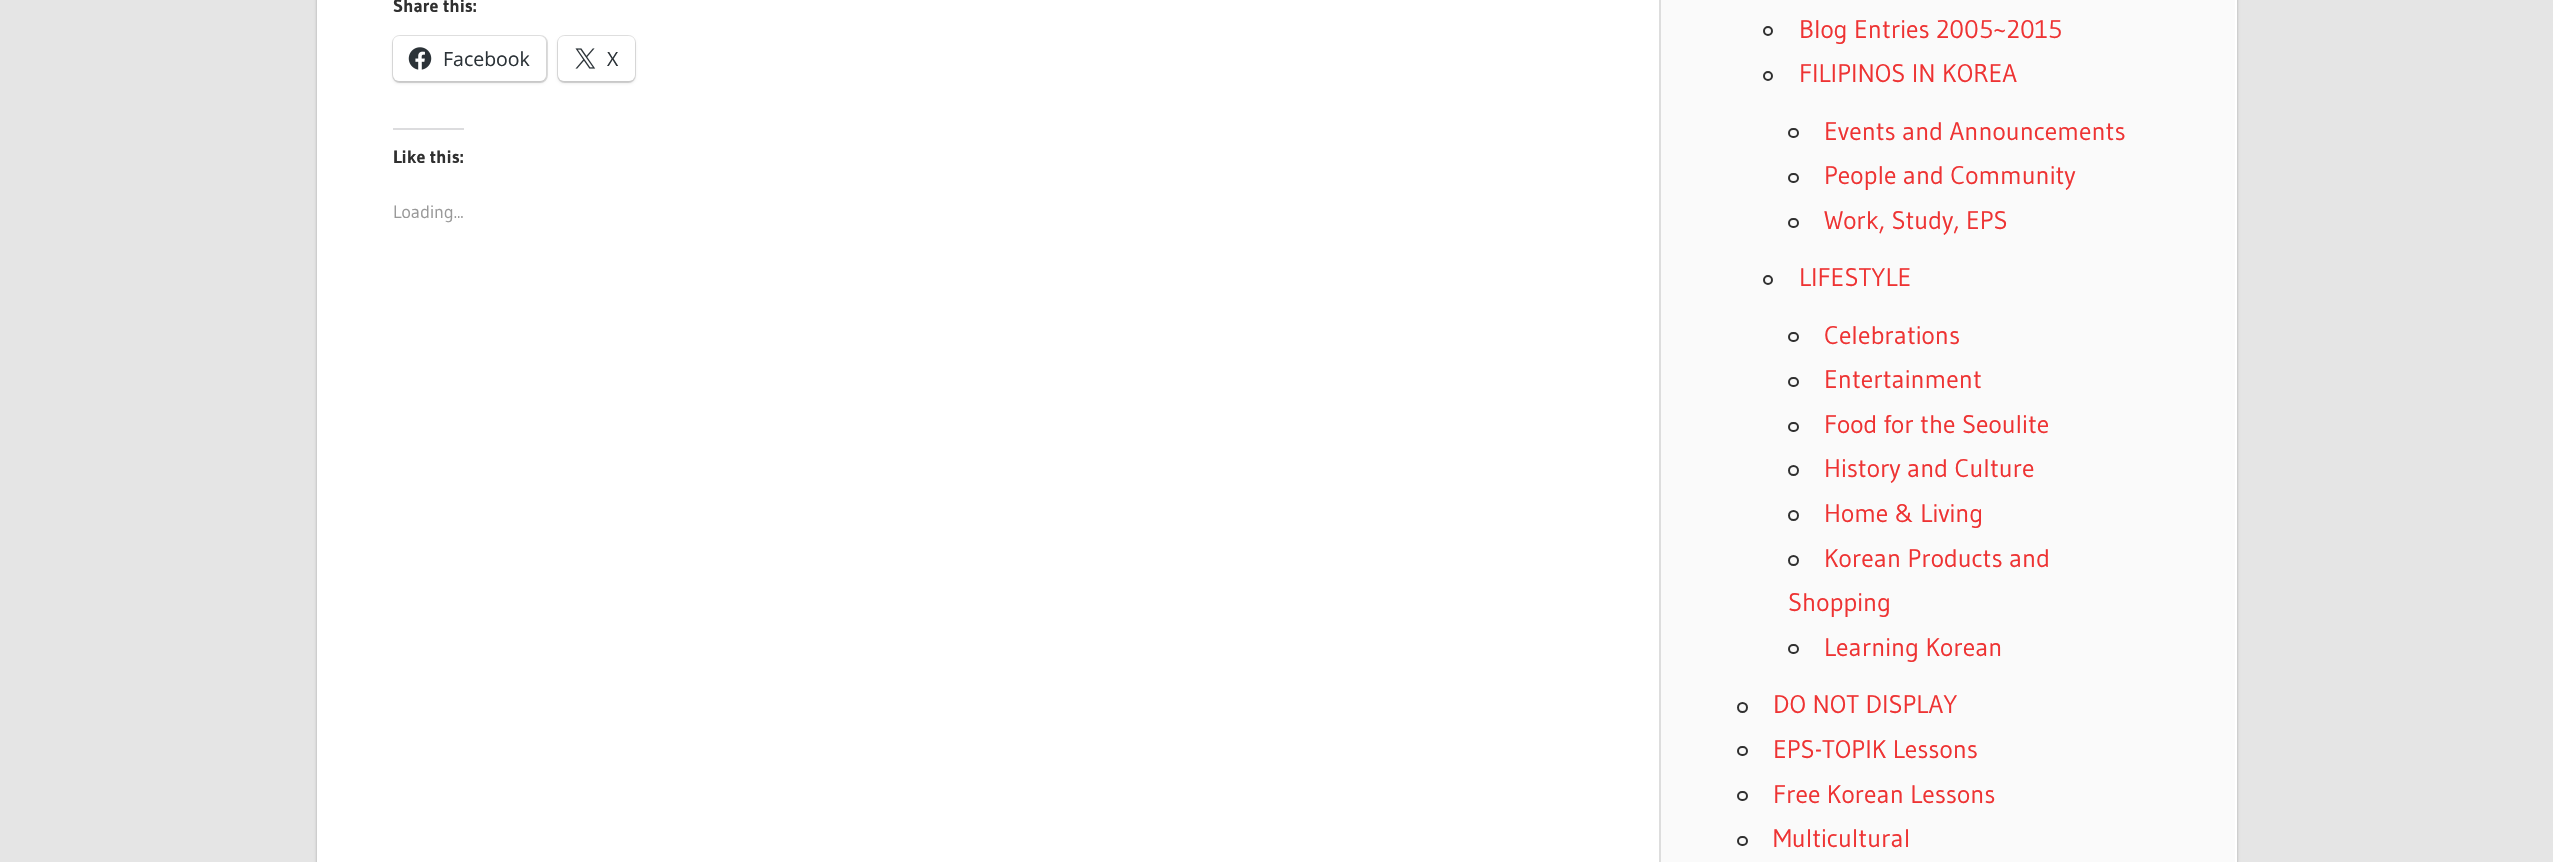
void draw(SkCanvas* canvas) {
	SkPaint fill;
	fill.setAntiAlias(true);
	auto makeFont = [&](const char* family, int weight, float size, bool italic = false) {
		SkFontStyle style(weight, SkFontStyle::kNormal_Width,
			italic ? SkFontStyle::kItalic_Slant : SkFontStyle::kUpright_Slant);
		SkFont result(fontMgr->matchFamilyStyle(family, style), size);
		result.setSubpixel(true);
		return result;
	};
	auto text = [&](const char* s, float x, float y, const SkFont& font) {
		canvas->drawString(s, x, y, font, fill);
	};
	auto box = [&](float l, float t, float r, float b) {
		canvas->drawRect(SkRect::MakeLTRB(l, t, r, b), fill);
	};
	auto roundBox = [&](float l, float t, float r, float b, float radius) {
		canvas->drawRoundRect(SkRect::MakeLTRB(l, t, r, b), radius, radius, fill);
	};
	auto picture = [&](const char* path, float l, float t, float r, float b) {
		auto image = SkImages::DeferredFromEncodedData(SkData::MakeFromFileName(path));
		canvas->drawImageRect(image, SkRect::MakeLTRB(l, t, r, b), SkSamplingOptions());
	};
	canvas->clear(0xFFE5E5E5);
	fill.setColor(0xFFAAAAAA);
	fill.setMaskFilter(SkMaskFilter::MakeBlur(kNormal_SkBlurStyle, 1.5f));
	canvas->drawRect(SkRect::MakeLTRB(317, -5, 2237, 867), fill);
	fill.setMaskFilter(nullptr);
	fill.setColor(0xFFFFFFFF);
	box(317, 0, 2237, 862);
	fill.setStyle(SkPaint::kStroke_Style);
	fill.setStrokeWidth(2);
	fill.setColor(0xFFE0E0E0);
	canvas->drawRoundRect(SkRect::MakeLTRB(393, 36, 547, 82), 7, 7, fill);
	fill.setStyle(SkPaint::kFill_Style);
	fill.setColor(0x1F000000);
	fill.setMaskFilter(SkMaskFilter::MakeBlur(kNormal_SkBlurStyle, 1.5f));
	canvas->drawRoundRect(SkRect::MakeLTRB(393, 38, 546, 83), 6, 6, fill);
	fill.setMaskFilter(nullptr);
	fill.setColor(0xFFFFFFFF);
	roundBox(393, 36, 546, 81, 6);
	picture("image0.png", 408, 47, 432, 70);
	fill.setStyle(SkPaint::kStroke_Style);
	fill.setColor(0xFFE0E0E0);
	canvas->drawRoundRect(SkRect::MakeLTRB(558, 36, 635, 82), 7, 7, fill);
	fill.setStyle(SkPaint::kFill_Style);
	fill.setColor(0x1F000000);
	fill.setMaskFilter(SkMaskFilter::MakeBlur(kNormal_SkBlurStyle, 1.5f));
	canvas->drawRoundRect(SkRect::MakeLTRB(558, 38, 635, 83), 6, 6, fill);
	fill.setMaskFilter(nullptr);
	fill.setColor(0xFFFFFFFF);
	roundBox(558, 36, 635, 81, 6);
	picture("image1.png", 575, 48, 596, 69);
	fill.setColor(0xFFDCDCDE);
	box(393, 128, 464, 130);
	fill.setColor(0xFFFAFAFA);
	box(1661, 0, 2235, 862);
	fill.setColor(0xFFDDDDDD);
	box(1659, 0, 1661, 862);
	fill.setStyle(SkPaint::kStroke_Style);
	fill.setColor(0xFF303030);
	canvas->drawCircle(1768, 31, 4, fill);
	canvas->drawCircle(1768, 76, 4, fill);
	canvas->drawRoundRect(SkRect::MakeLTRB(1789, 129, 1798, 137), 4, 4, fill);
	canvas->drawRoundRect(SkRect::MakeLTRB(1789, 174, 1798, 182), 4, 4, fill);
	canvas->drawRoundRect(SkRect::MakeLTRB(1789, 219, 1798, 227), 4, 4, fill);
	canvas->drawCircle(1768, 280, 4, fill);
	canvas->drawRoundRect(SkRect::MakeLTRB(1789, 333, 1798, 341), 4, 4, fill);
	canvas->drawRoundRect(SkRect::MakeLTRB(1789, 378, 1798, 386), 4, 4, fill);
	canvas->drawRoundRect(SkRect::MakeLTRB(1789, 423, 1798, 431), 4, 4, fill);
	canvas->drawCircle(1793.5f, 470.5f, 4.5f, fill);
	canvas->drawCircle(1793.5f, 515.5f, 4.5f, fill);
	canvas->drawCircle(1793.5f, 560.5f, 4.5f, fill);
	canvas->drawRoundRect(SkRect::MakeLTRB(1789, 645, 1798, 653), 4, 4, fill);
	canvas->drawCircle(1742.5f, 707.5f, 4.5f, fill);
	canvas->drawRoundRect(SkRect::MakeLTRB(1738, 747, 1747, 755), 4, 4, fill);
	canvas->drawRoundRect(SkRect::MakeLTRB(1738, 792, 1747, 800), 4, 4, fill);
	canvas->drawRoundRect(SkRect::MakeLTRB(1738, 837, 1747, 845), 4, 4, fill);
	auto font1 = makeFont("Gudea", 700, 18);
	fill.setStyle(SkPaint::kFill_Style);
	text("Share this:", 393, 12, font1);
	auto font2 = makeFont("Open Sans", 400, 19.5f);
	fill.setColor(0xFF2C3338);
	text("Facebook", 443, 66, font2);
	text("X", 607, 66, font2);
	fill.setColor(0xFF303030);
	text("Like this:", 393, 163, font1);
	auto font3 = makeFont("Gudea", 400, 18);
	fill.setColor(0xFF999999);
	text("Loading...", 393, 218, font3);
	auto font4 = makeFont("Gudea", 400, 25.5f);
	fill.setColor(0xFFEE3333);
	text("Blog Entries 2005~2015", 1799, 38, font4);
	text("FILIPINOS IN KOREA", 1799, 82, font4);
	text("Events and Announcements", 1824, 140, font4);
	text("People and Community", 1824, 184, font4);
	text("Work, Study, EPS", 1824, 229, font4);
	text("LIFESTYLE", 1799, 286, font4);
	text("Celebrations", 1824, 344, font4);
	text("Entertainment", 1824, 388, font4);
	text("Food for the Seoulite", 1824, 433, font4);
	text("History and Culture", 1824, 477, font4);
	text("Home & Living", 1824, 522, font4);
	text("Korean Products and", 1824, 567, font4);
	text("Shopping", 1788, 611, font4);
	text("Learning Korean", 1824, 656, font4);
	text("DO NOT DISPLAY", 1773, 713, font4);
	text("EPS-TOPIK Lessons", 1773, 758, font4);
	text("Free Korean Lessons", 1773, 803, font4);
	text("Multicultural", 1773, 847, font4);
}
